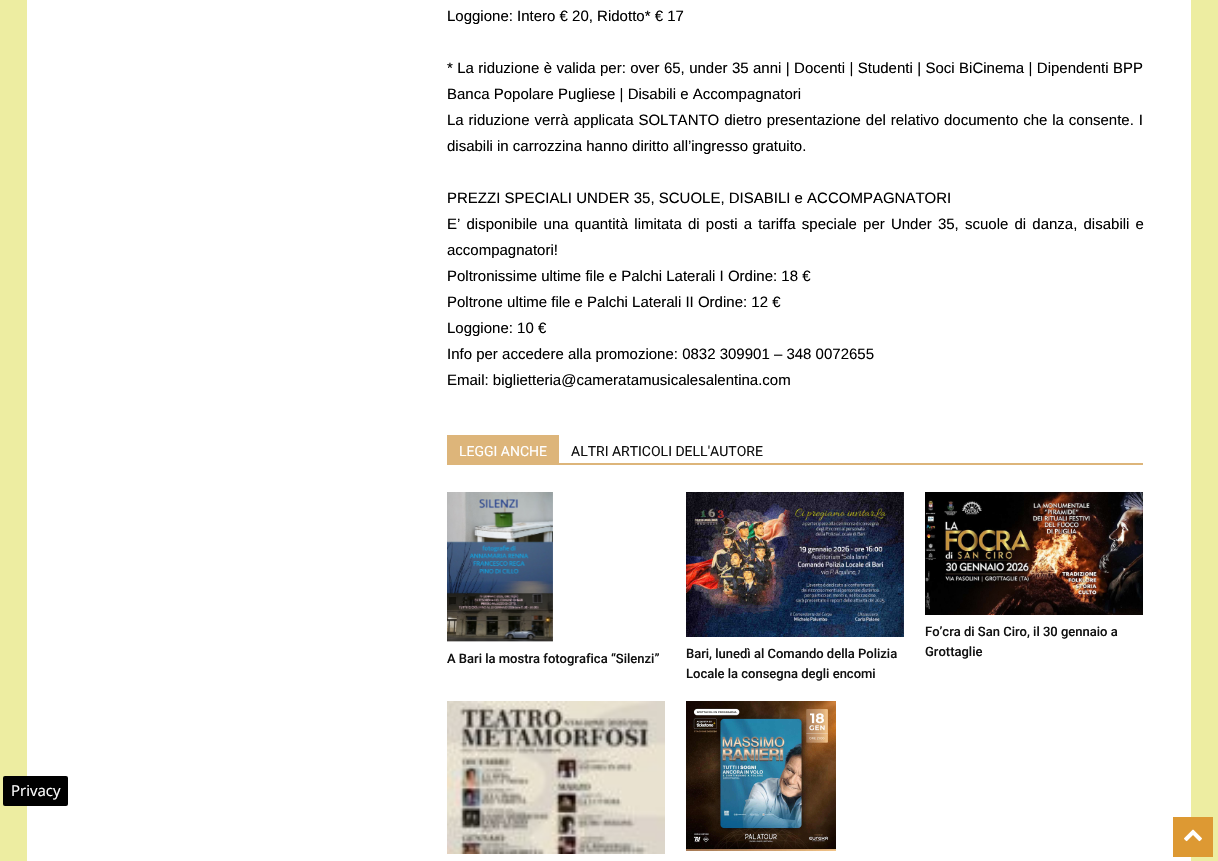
void draw(SkCanvas* canvas) {
	SkPaint fill;
	fill.setAntiAlias(true);
	auto makeFont = [&](const char* family, int weight, float size, bool italic = false) {
		SkFontStyle style(weight, SkFontStyle::kNormal_Width,
			italic ? SkFontStyle::kItalic_Slant : SkFontStyle::kUpright_Slant);
		SkFont result(fontMgr->matchFamilyStyle(family, style), size);
		result.setSubpixel(true);
		return result;
	};
	auto text = [&](const char* s, float x, float y, const SkFont& font) {
		canvas->drawString(s, x, y, font, fill);
	};
	auto spacedText = [&](const char* s, float x, float y, const SkFont& font, const SkPaint& ink, float letter, float word) {
		std::vector<SkGlyphID> glyphs(font.countText(s, strlen(s), SkTextEncoding::kUTF8));
		std::vector<float> xs(glyphs.size());
		font.textToGlyphs(s, strlen(s), SkTextEncoding::kUTF8, glyphs);
		font.getXPos(glyphs, xs, x);
		float extra = 0;
		for (size_t i = 0; i < glyphs.size(); i++) {
			xs[i] += extra;
			extra += letter + word * (glyphs[i] == font.unicharToGlyph(' '));
		}
		canvas->drawTextBlob(SkTextBlob::MakeFromPosHGlyphs(glyphs, xs, y, font), 0, 0, ink);
	};
	auto box = [&](float l, float t, float r, float b) {
		canvas->drawRect(SkRect::MakeLTRB(l, t, r, b), fill);
	};
	auto roundBox = [&](float l, float t, float r, float b, float radius) {
		canvas->drawRoundRect(SkRect::MakeLTRB(l, t, r, b), radius, radius, fill);
	};
	auto picture = [&](const char* path, float l, float t, float r, float b) {
		auto image = SkImages::DeferredFromEncodedData(SkData::MakeFromFileName(path));
		canvas->drawImageRect(image, SkRect::MakeLTRB(l, t, r, b), SkSamplingOptions());
	};
	canvas->clear(0xFFEDEDA1);
	fill.setColor(0xFFFFFFFF);
	box(27, 0, 1191, 861);
	fill.setColor(0xFFDDB57A);
	box(447, 463, 1143, 465);
	box(447, 435, 559, 463);
	picture("image0.png", 925, 492, 1143, 615);
	picture("image1.png", 447, 492, 553, 642);
	picture("image2.png", 686, 492, 904, 637);
	picture("image3.png", 447, 701, 665, 854);
	picture("image4.png", 686, 701, 836, 851);
	fill.setColor(0xFF000000);
	roundBox(3, 776, 68, 806, 2);
	fill.setColor(0xFFDD9933);
	box(1173, 817, 1213, 857);
	picture("image5.png", 1184, 829, 1202, 842);
	auto font1 = makeFont("Liberation Sans", 400, 15);
	fill.setColor(0xFF000000);
	text("Loggione: Intero € 20, Ridotto* € 17", 447, 21, font1);
	spacedText("* La riduzione è valida per: over 65, under 35 anni | Docenti | Studenti | Soci BiCinema | Dipendenti BPP", 447, 73, font1, fill, 0, 0.25f);
	text("Banca Popolare Pugliese | Disabili e Accompagnatori", 447, 99, font1);
	spacedText("La riduzione verrà applicata SOLTANTO dietro presentazione del relativo documento che la consente. I", 447, 125, font1, fill, 0, 0.75f);
	text("disabili in carrozzina hanno diritto all’ingresso gratuito.", 447, 151, font1);
	text("PREZZI SPECIALI UNDER 35, SCUOLE, DISABILI e ACCOMPAGNATORI", 447, 203, font1);
	spacedText("E’ disponibile una quantità limitata di posti a tariffa speciale per Under 35, scuole di danza, disabili e", 447, 229, font1, fill, 0, 2);
	text("accompagnatori!", 447, 255, font1);
	text("Poltronissime ultime file e Palchi Laterali I Ordine: 18 €", 447, 281, font1);
	text("Poltrone ultime file e Palchi Laterali II Ordine: 12 €", 447, 307, font1);
	text("Loggione: 10 €", 447, 333, font1);
	text("Info per accedere alla promozione: 0832 309901 – 348 0072655", 447, 359, font1);
	text("Email: biglietteria@cameratamusicalesalentina.com", 447, 385, font1);
	auto font2 = makeFont("Roboto", 400, 14);
	fill.setColor(0xFFFFFFFF);
	text("LEGGI ANCHE", 459, 456, font2);
	fill.setColor(0xFF111111);
	text("ALTRI ARTICOLI DELL'AUTORE", 571, 456, font2);
	auto font3 = makeFont("Roboto", 500, 13);
	text("Fo’cra di San Ciro, il 30 gennaio a", 925, 636, font3);
	text("Grottaglie", 925, 656, font3);
	text("A Bari la mostra fotografica “Silenzi”", 447, 663, font3);
	text("Bari, lunedì al Comando della Polizia", 686, 658, font3);
	text("Locale la consegna degli encomi", 686, 678, font3);
	auto font4 = makeFont("Open Sans", 400, 15);
	fill.setColor(0xFFFFFFFF);
	text("Privacy", 11, 796, font4);
}
